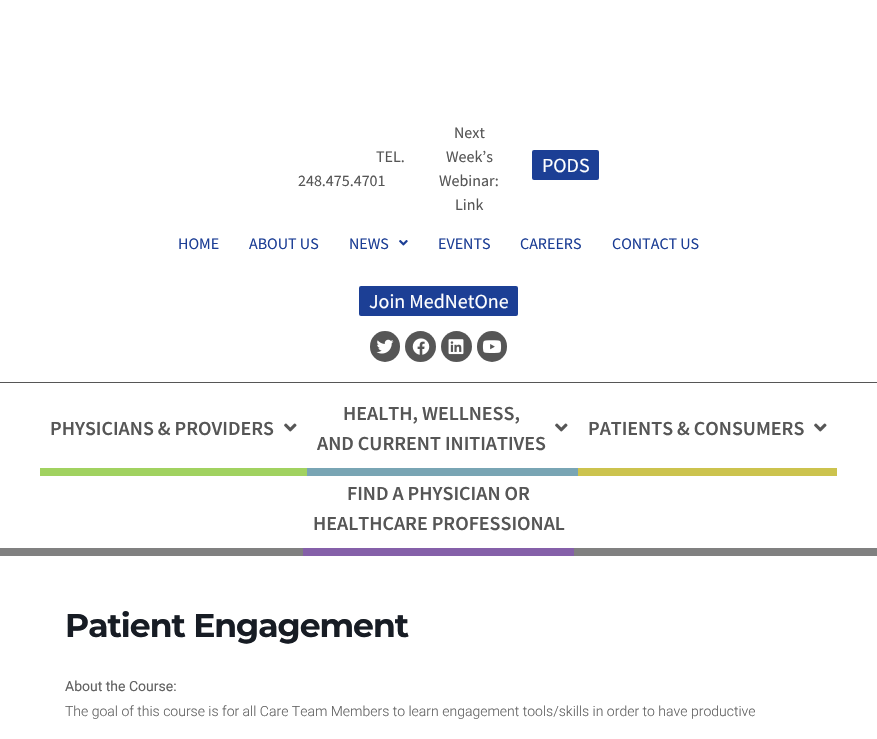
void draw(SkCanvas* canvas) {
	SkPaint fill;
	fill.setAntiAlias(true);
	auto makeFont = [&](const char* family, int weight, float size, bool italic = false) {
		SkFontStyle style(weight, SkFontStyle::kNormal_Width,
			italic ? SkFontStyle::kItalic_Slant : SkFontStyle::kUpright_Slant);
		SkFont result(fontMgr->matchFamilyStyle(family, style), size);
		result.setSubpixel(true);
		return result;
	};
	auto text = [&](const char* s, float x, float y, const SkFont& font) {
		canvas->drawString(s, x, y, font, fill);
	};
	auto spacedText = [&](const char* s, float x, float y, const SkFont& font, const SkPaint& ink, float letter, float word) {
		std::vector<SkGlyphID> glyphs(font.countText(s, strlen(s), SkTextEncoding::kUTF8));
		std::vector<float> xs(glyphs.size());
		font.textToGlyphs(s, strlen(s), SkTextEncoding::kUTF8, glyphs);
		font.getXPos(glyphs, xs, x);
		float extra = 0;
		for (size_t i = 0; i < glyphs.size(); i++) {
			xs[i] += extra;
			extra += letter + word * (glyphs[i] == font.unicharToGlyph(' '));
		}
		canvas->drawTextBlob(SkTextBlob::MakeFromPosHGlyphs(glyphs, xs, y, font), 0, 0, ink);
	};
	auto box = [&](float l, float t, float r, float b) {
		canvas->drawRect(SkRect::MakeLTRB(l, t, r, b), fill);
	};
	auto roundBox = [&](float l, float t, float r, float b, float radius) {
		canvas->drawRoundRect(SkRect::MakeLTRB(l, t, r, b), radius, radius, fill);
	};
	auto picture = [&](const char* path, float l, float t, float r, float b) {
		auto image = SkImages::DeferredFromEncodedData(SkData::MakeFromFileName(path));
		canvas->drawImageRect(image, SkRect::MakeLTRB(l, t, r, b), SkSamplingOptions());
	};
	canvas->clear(0xFFFFFFFF);
	fill.setColor(0xFF565656);
	box(0, 382, 877, 383);
	fill.setColor(0xFF1C3F95);
	roundBox(532, 150, 599, 180, 2);
	picture("image0.png", 399, 240, 408, 246);
	roundBox(359, 286, 518, 316, 2);
	fill.setColor(0xFF565656);
	roundBox(370, 331, 400, 362, 15);
	picture("image1.png", 376, 339, 394, 354);
	canvas->drawCircle(420.5f, 346.5f, 15.5f, fill);
	picture("image2.png", 412, 338, 430, 355);
	canvas->drawCircle(456.5f, 346.5f, 15.5f, fill);
	picture("image3.png", 448, 339, 464, 355);
	roundBox(477, 331, 507, 362, 15);
	picture("image4.png", 482, 340, 502, 353);
	fill.setColor(0xFF808080);
	box(0, 548, 877, 556);
	fill.setColor(0xFFA1D260);
	box(40, 468, 307, 476);
	picture("image5.png", 284, 423, 297, 432);
	fill.setColor(0xFF79A5B4);
	box(307, 468, 578, 476);
	picture("image5.png", 555, 423, 568, 432);
	fill.setColor(0xFFCCC34E);
	box(578, 468, 837, 476);
	picture("image5.png", 814, 423, 827, 432);
	fill.setColor(0xFF8560A9);
	box(303, 548, 574, 556);
	auto font1 = makeFont("Source Sans Pro", 400, 16);
	fill.setColor(0xFF565656);
	text("TEL.", 376, 162, font1);
	text("248.475.4701", 298, 186, font1);
	text("Next", 454, 138, font1);
	text("Week’s", 446, 162, font1);
	text("Webinar:", 439, 186, font1);
	text("Link", 455, 210, font1);
	auto font2 = makeFont("Source Sans Pro", 400, 20);
	fill.setColor(0xFFFFFFFF);
	text("PODS", 542, 172, font2);
	fill.setColor(0xFF1C3E95);
	text("HOME", 178, 249, font1);
	text("ABOUT US", 249, 249, font1);
	text("NEWS", 349, 249, font1);
	text("EVENTS", 438, 249, font1);
	text("CAREERS", 520, 249, font1);
	text("CONTACT US", 612, 249, font1);
	fill.setColor(0xFFFFFFFF);
	text("Join MedNetOne", 369, 308, font2);
	auto font3 = makeFont("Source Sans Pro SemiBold", 600, 20);
	fill.setColor(0xFF565656);
	text("PHYSICIANS & PROVIDERS", 50, 435, font3);
	text("HEALTH, WELLNESS,", 343, 420, font3);
	text("AND CURRENT INITIATIVES", 317, 450, font3);
	text("PATIENTS & CONSUMERS", 588, 435, font3);
	text("FIND A PHYSICIAN OR", 347, 500, font3);
	text("HEALTHCARE PROFESSIONAL", 313, 530, font3);
	auto font4 = makeFont("Montserrat", 700, 33);
	fill.setColor(0xFF171C24);
	spacedText("Patient Engagement", 65, 637, font4, fill, -1, 0);
	auto font5 = makeFont("Roboto", 400, 14);
	fill.setColor(0xFF616161);
	text("About the Course:", 65, 691, font5);
	auto font6 = makeFont("Roboto", 300, 14);
	text("The goal of this course is for all Care Team Members to learn engagement tools/skills in order to have productive", 65, 716, font6);
}
